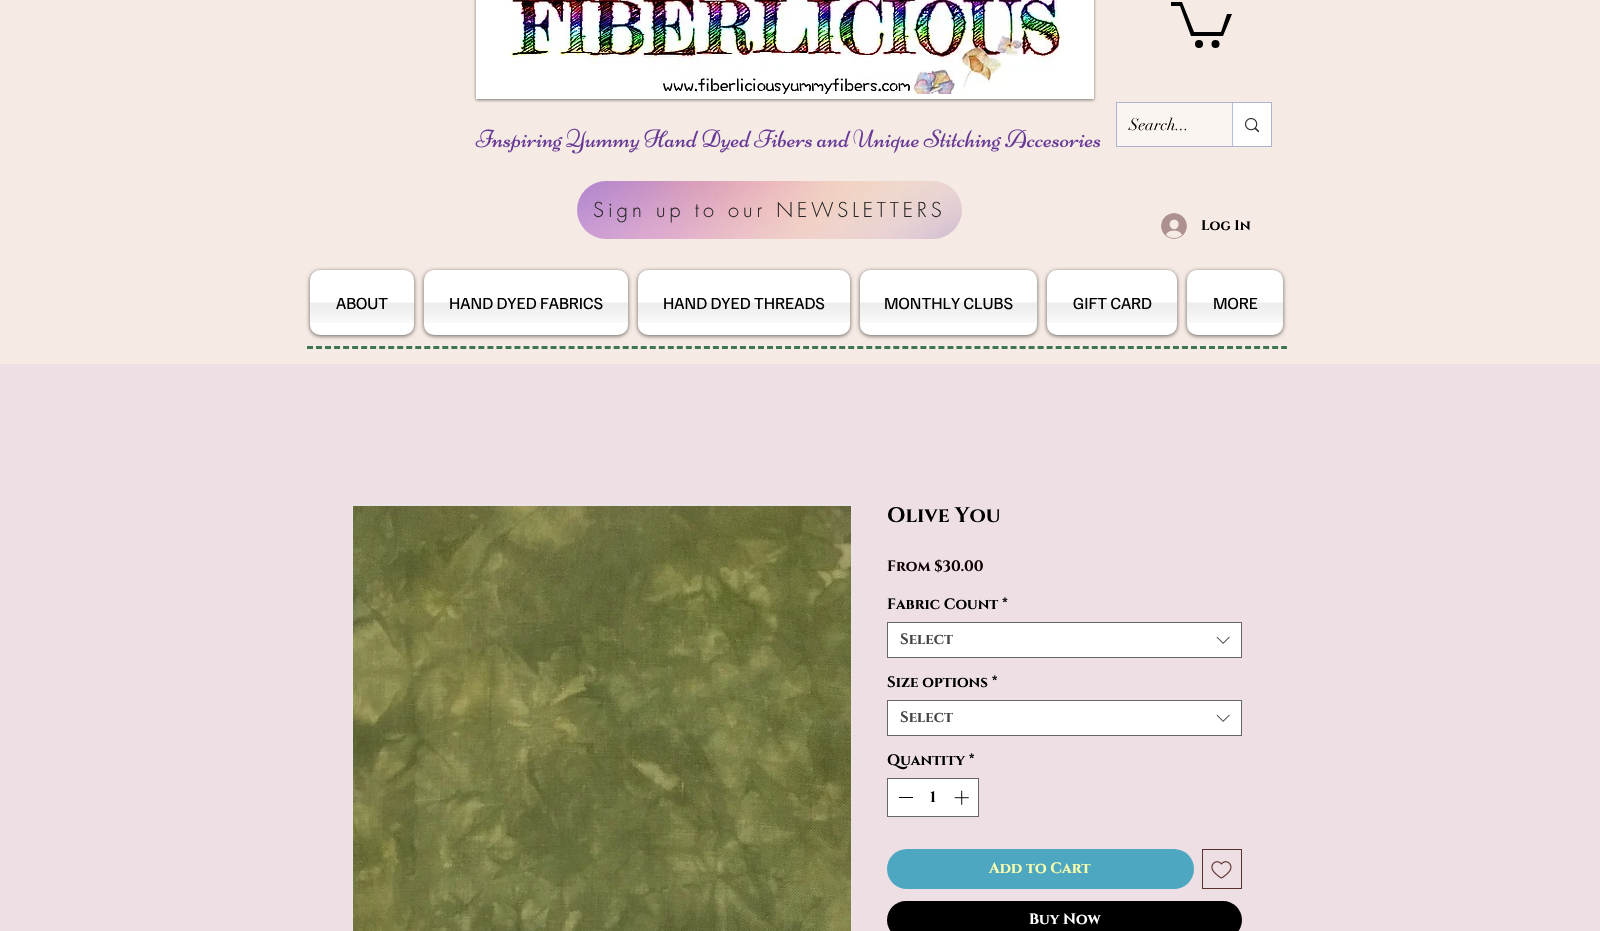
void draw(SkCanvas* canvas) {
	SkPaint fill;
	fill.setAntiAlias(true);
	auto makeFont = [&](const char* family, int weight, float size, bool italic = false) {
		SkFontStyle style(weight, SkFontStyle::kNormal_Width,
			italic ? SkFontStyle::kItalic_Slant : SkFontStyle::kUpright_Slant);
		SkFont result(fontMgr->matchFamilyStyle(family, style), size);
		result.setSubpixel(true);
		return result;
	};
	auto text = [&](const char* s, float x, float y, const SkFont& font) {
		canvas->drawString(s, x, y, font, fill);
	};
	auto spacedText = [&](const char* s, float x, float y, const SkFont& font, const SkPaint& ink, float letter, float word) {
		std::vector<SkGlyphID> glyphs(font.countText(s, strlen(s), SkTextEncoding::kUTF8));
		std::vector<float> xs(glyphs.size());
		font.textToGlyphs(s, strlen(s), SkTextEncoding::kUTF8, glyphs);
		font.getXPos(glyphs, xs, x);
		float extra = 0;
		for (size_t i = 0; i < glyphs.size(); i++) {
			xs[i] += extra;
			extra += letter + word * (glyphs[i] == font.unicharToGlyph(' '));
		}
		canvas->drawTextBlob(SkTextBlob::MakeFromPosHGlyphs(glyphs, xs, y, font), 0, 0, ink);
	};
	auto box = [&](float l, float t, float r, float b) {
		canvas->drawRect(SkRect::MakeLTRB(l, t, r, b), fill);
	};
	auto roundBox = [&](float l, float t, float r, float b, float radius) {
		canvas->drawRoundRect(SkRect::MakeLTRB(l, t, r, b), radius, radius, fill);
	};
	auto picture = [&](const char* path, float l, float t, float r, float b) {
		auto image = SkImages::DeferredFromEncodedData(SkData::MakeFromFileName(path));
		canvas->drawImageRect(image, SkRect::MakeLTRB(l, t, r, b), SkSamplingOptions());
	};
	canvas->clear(0xFFEDDFE4);
	fill.setColor(0xFFF6EBE4);
	box(0, 0, 1600, 364);
	fill.setColor(0x80000000);
	fill.setMaskFilter(SkMaskFilter::MakeBlur(kNormal_SkBlurStyle, 1.5f));
	canvas->drawRect(SkRect::MakeLTRB(476, -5, 1094, 100), fill);
	fill.setMaskFilter(nullptr);
	fill.setColor(0xFFFFFFFF);
	box(476, 0, 1094, 99);
	picture("image0.png", 505, 0, 1065, 94);
	fill.setColor(0xFF000000);
	canvas->drawPath(SkPathBuilder().moveTo(1232, 14).lineTo(1223, 36).lineTo(1191, 36).lineTo(1180, 6).lineTo(1171, 6).lineTo(1171, 2).lineTo(1182, 2).lineTo(1194, 32).lineTo(1221, 32).lineTo(1227, 14).detach(), fill);
	canvas->drawCircle(1215.5f, 44, 4, fill);
	canvas->drawCircle(1199, 44, 4, fill);
	fill.setStyle(SkPaint::kStroke_Style);
	fill.setStrokeWidth(1);
	fill.setColor(0xFFAEB3D0);
	canvas->drawRect(SkRect::MakeLTRB(1116.5f, 102.5f, 1271.5f, 146.5f), fill);
	fill.setStyle(SkPaint::kFill_Style);
	fill.setColor(0xFFFAF5F1);
	box(1117, 103, 1232, 146);
	fill.setColor(0xFFFFFFFF);
	box(1233, 103, 1271, 146);
	fill.setColor(0xFFB3BEDF);
	box(1232, 103, 1233, 146);
	picture("image1.png", 1245, 118, 1259, 132);
	picture("image2.png", 475, 128, 812, 154);
	picture("image3.png", 817, 129, 1101, 153);
	picture("image4.png", 577, 181, 962, 239);
	picture("image5.png", 1161, 213, 1187, 239);
	fill.setColor(0x99000000);
	fill.setMaskFilter(SkMaskFilter::MakeBlur(kNormal_SkBlurStyle, 2));
	canvas->drawRoundRect(SkRect::MakeLTRB(310, 271, 414, 336), 10, 10, fill);
	fill.setMaskFilter(nullptr);
	fill.setColor(0xFFFFFFFF);
	roundBox(310, 270, 414, 335, 10);
	picture("image6.png", 310, 302, 414, 323);
	fill.setColor(0x99000000);
	fill.setMaskFilter(SkMaskFilter::MakeBlur(kNormal_SkBlurStyle, 2));
	canvas->drawRoundRect(SkRect::MakeLTRB(424, 271, 628, 336), 10, 10, fill);
	fill.setMaskFilter(nullptr);
	fill.setColor(0xFFFFFFFF);
	roundBox(424, 270, 628, 335, 10);
	picture("image7.png", 424, 302, 628, 323);
	fill.setColor(0x99000000);
	fill.setMaskFilter(SkMaskFilter::MakeBlur(kNormal_SkBlurStyle, 2));
	canvas->drawRoundRect(SkRect::MakeLTRB(638, 271, 850, 336), 10, 10, fill);
	fill.setMaskFilter(nullptr);
	fill.setColor(0xFFFFFFFF);
	roundBox(638, 270, 850, 335, 10);
	picture("image8.png", 638, 302, 850, 323);
	fill.setColor(0x99000000);
	fill.setMaskFilter(SkMaskFilter::MakeBlur(kNormal_SkBlurStyle, 2));
	canvas->drawRoundRect(SkRect::MakeLTRB(860, 271, 1037, 336), 10, 10, fill);
	fill.setMaskFilter(nullptr);
	fill.setColor(0xFFFFFFFF);
	roundBox(860, 270, 1037, 335, 10);
	picture("image9.png", 860, 302, 1037, 323);
	fill.setColor(0x99000000);
	fill.setMaskFilter(SkMaskFilter::MakeBlur(kNormal_SkBlurStyle, 2));
	canvas->drawRoundRect(SkRect::MakeLTRB(1047, 271, 1177, 336), 10, 10, fill);
	fill.setMaskFilter(nullptr);
	fill.setColor(0xFFFFFFFF);
	roundBox(1047, 270, 1177, 335, 10);
	picture("image10.png", 1047, 302, 1177, 323);
	fill.setColor(0x99000000);
	fill.setMaskFilter(SkMaskFilter::MakeBlur(kNormal_SkBlurStyle, 2));
	canvas->drawRoundRect(SkRect::MakeLTRB(1187, 271, 1283, 336), 10, 10, fill);
	fill.setMaskFilter(nullptr);
	fill.setColor(0xFFFFFFFF);
	roundBox(1187, 270, 1283, 335, 10);
	picture("image11.png", 1187, 302, 1283, 323);
	fill.setStyle(SkPaint::kStroke_Style);
	fill.setStrokeWidth(3);
	fill.setColor(0xFF3F7652);
	fill.setPathEffect(SkDashPathEffect::Make({{6, 3.02f}}, 0));
	canvas->drawPath(SkPathBuilder().moveTo(307, 347.5f).lineTo(1287, 347.5f).detach(), fill);
	fill.setPathEffect(nullptr);
	fill.setStrokeWidth(1);
	fill.setColor(0xFFE8E6E6);
	canvas->drawRect(SkRect::MakeLTRB(352.5f, 504.5f, 851.5f, 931.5f), fill);
	picture("image12.png", 353, 506, 851, 931);
	fill.setStyle(SkPaint::kFill_Style);
	fill.setColor(0xFFFFFFFF);
	canvas->drawRect(SkRect::MakeLTRB(887.5f, 622.5f, 1241.5f, 657.5f), fill);
	fill.setStyle(SkPaint::kStroke_Style);
	fill.setColor(0xFF666666);
	canvas->drawRect(SkRect::MakeLTRB(887.5f, 622.5f, 1241.5f, 657.5f), fill);
	picture("image13.png", 1216, 636, 1230, 644);
	fill.setStyle(SkPaint::kFill_Style);
	fill.setColor(0xFFFFFFFF);
	canvas->drawRect(SkRect::MakeLTRB(887.5f, 700.5f, 1241.5f, 735.5f), fill);
	fill.setStyle(SkPaint::kStroke_Style);
	fill.setColor(0xFF666666);
	canvas->drawRect(SkRect::MakeLTRB(887.5f, 700.5f, 1241.5f, 735.5f), fill);
	picture("image13.png", 1216, 714, 1230, 722);
	fill.setStyle(SkPaint::kFill_Style);
	fill.setColor(0xFFFFFFFF);
	canvas->drawRect(SkRect::MakeLTRB(887.5f, 778.5f, 978.5f, 816.5f), fill);
	fill.setStyle(SkPaint::kStroke_Style);
	fill.setColor(0xFF666666);
	canvas->drawRect(SkRect::MakeLTRB(887.5f, 778.5f, 978.5f, 816.5f), fill);
	fill.setStyle(SkPaint::kFill_Style);
	fill.setColor(0xFF000000);
	box(899, 797, 913, 798);
	picture("image14.png", 954, 790, 969, 805);
	fill.setColor(0xFF4DA7C0);
	roundBox(887, 849, 1194, 889, 20);
	fill.setStyle(SkPaint::kStroke_Style);
	fill.setColor(0xFF5B2F2C);
	canvas->drawRect(SkRect::MakeLTRB(1202.5f, 849.5f, 1241.5f, 888.5f), fill);
	picture("image15.png", 1211, 861, 1232, 879);
	fill.setStyle(SkPaint::kFill_Style);
	fill.setColor(0xFF000000);
	roundBox(887, 901, 1242, 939, 19);
	auto font1 = makeFont("didot", 400, 16);
	text("Search...", 1129, 130, font1);
	auto font2 = makeFont("futura", 300, 20);
	fill.setColor(0xFF282626);
	spacedText("Sign up to our NEWSLETTERS", 593, 217, font2, fill, 4, 0);
	auto font3 = makeFont("Cinzel", 700, 14);
	fill.setColor(0xFF000000);
	text("Log In", 1201, 230, font3);
	auto font4 = makeFont("Familjen Grotesk", 400, 17);
	text("ABOUT", 336, 309, font4);
	text("HAND DYED FABRICS", 449, 309, font4);
	text("HAND DYED THREADS", 663, 309, font4);
	text("MONTHLY CLUBS", 884, 309, font4);
	text("GIFT CARD", 1073, 309, font4);
	text("MORE", 1213, 309, font4);
	auto font5 = makeFont("Cinzel", 700, 21);
	text("Olive You", 887, 522, font5);
	auto font6 = makeFont("Cinzel", 700, 15);
	fill.setColor(0xFF0C0000);
	text("From $30.00", 887, 571, font6);
	fill.setColor(0xFF000000);
	text("Fabric Count *", 887, 609, font6);
	fill.setColor(0xFF444444);
	text("Select", 900, 644, font6);
	fill.setColor(0xFF000000);
	text("Size options *", 887, 687, font6);
	fill.setColor(0xFF444444);
	text("Select", 900, 722, font6);
	fill.setColor(0xFF000000);
	text("Quantity *", 887, 765, font6);
	text("1", 930, 802, font6);
	fill.setColor(0xFFFEFFAE);
	text("Add to Cart", 989, 873, font6);
	fill.setColor(0xFFFFFFFF);
	text("Buy Now", 1029, 924, font6);
}
